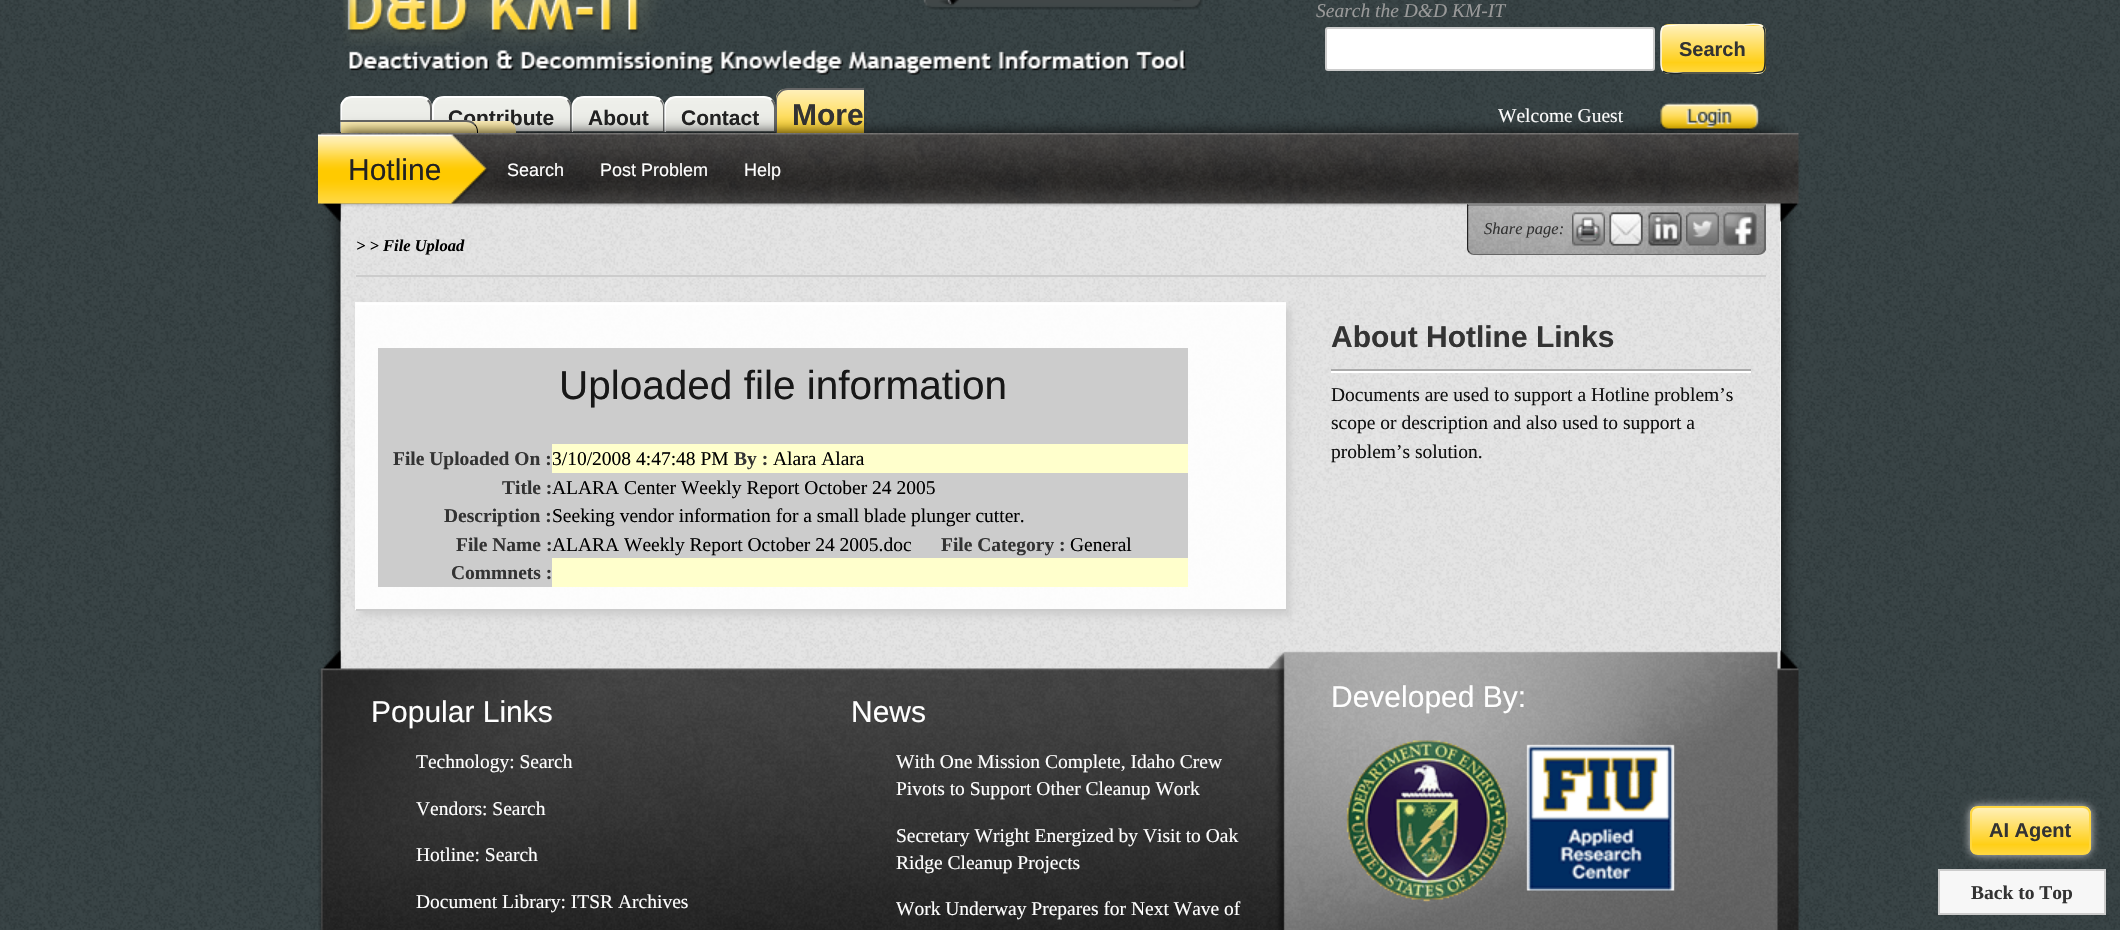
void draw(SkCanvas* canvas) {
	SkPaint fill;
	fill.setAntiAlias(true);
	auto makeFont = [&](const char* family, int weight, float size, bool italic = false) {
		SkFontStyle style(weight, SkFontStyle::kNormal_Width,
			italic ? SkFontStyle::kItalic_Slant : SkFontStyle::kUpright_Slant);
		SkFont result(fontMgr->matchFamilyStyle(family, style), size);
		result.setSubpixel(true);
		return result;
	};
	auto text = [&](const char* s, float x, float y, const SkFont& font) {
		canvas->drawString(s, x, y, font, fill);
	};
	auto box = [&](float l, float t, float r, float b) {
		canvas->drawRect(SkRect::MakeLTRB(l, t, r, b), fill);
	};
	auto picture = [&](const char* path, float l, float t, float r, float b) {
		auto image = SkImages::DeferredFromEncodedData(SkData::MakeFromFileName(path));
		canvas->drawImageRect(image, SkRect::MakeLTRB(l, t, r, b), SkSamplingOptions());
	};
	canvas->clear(0xFFFFFFFF);
	picture("image0.png", 0, 0, 2120, 930);
	picture("image2.png", 343, 0, 1187, 75);
	picture("image1.png", 923, 0, 1203, 10);
	fill.setColor(0xFFFFFFFF);
	canvas->drawRoundRect(SkRect::MakeLTRB(1326, 28, 1654, 70), 2, 2, fill);
	fill.setStyle(SkPaint::kStroke_Style);
	fill.setStrokeWidth(2);
	fill.setColor(0xFFCCCCCC);
	canvas->drawRoundRect(SkRect::MakeLTRB(1326, 28, 1654, 70), 2, 2, fill);
	canvas->save();
	canvas->clipPath(SkPathBuilder().moveTo(1669, 24).lineTo(1758, 24).cubicTo(1762.5f, 24, 1766, 27.5f, 1766, 32).lineTo(1766, 66).cubicTo(1766, 70.5f, 1762.5f, 74, 1758, 74).lineTo(1669, 74).cubicTo(1664.5f, 74, 1661, 70.5f, 1661, 66).lineTo(1661, 32).cubicTo(1661, 27.5f, 1664.5f, 24, 1669, 24).close().detach(), true);
	fill.setStyle(SkPaint::kFill_Style);
	{
		const SkColor colors[] = {0xFFFFF1BC, 0xFFFFCF17, 0xFFFFD73F};
		const float stops[] = {0, 0.8f, 1};
		const SkPoint ends[] = {{1713, -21}, {1713, 26}};
		fill.setShader(SkGradientShader::MakeLinear(ends, colors, stops, 3, SkTileMode::kClamp));
		fill.setAlpha(255);
	}
	box(1661, 24, 1766, 26);
	{
		const SkColor colors[] = {0xFFFFF1BC, 0xFFFFCF17, 0xFFFFD73F};
		const float stops[] = {0, 0.8f, 1};
		const SkPoint ends[] = {{1713, 25}, {1713, 72}};
		fill.setShader(SkGradientShader::MakeLinear(ends, colors, stops, 3, SkTileMode::kClamp));
		fill.setAlpha(255);
	}
	box(1661, 26, 1766, 72);
	{
		const SkColor colors[] = {0xFFFFF1BC, 0xFFFFCF17, 0xFFFFD73F};
		const float stops[] = {0, 0.8f, 1};
		const SkPoint ends[] = {{1713, 72}, {1713, 119}};
		fill.setShader(SkGradientShader::MakeLinear(ends, colors, stops, 3, SkTileMode::kClamp));
		fill.setAlpha(255);
	}
	box(1661, 72, 1766, 74);
	canvas->restore();
	fill.setStyle(SkPaint::kStroke_Style);
	fill.setStrokeWidth(1.5f);
	fill.setShader(nullptr);
	fill.setColor(0xFF1F2628);
	canvas->drawPath(SkPathBuilder().moveTo(1763, 26.5f).cubicTo(1765.5f, 29.5f, 1765, 33.5f, 1765, 37).lineTo(1765, 49).cubicTo(1765, 74, 1768.5f, 73, 1743, 73).lineTo(1683, 73).cubicTo(1680.5f, 73, 1667.5f, 75, 1663, 71).detach(), fill);
	fill.setColor(0xFFFFFBEE);
	canvas->drawPath(SkPathBuilder().moveTo(1663, 71).cubicTo(1660.5f, 68, 1661, 64, 1661, 60).lineTo(1661, 49).cubicTo(1661, 23.5f, 1657.5f, 25, 1683, 25).lineTo(1743, 25).cubicTo(1745.5f, 25, 1758.5f, 22.5f, 1763, 26.5f).detach(), fill);
	picture("image4.png", 340, 97, 432, 132);
	fill.setStyle(SkPaint::kFill_Style);
	fill.setColor(0xFFFFFFFF);
	canvas->drawPath(SkPathBuilder().moveTo(352, 96).cubicTo(349, 96, 346, 97, 344, 99).lineTo(345, 101).cubicTo(347, 99, 350, 98, 352, 98).lineTo(420, 98).cubicTo(423, 98, 426, 99, 427, 101).lineTo(429, 99).cubicTo(426, 97, 424, 96, 420, 96).close().detach(), fill);
	picture("image5.png", 432, 97, 572, 132);
	canvas->drawPath(SkPathBuilder().moveTo(444, 96).cubicTo(440, 96, 438, 97, 435, 99).lineTo(437, 101).cubicTo(438, 99, 441, 98, 444, 98).lineTo(560, 98).cubicTo(562, 98, 565, 99, 567, 101).lineTo(568, 99).cubicTo(566, 97, 563, 96, 560, 96).close().detach(), fill);
	fill.setColor(0xFF666666);
	canvas->drawPath(SkPathBuilder().moveTo(567, 100.5f).lineTo(568, 99.5f).cubicTo(569.5f, 100.5f, 571, 102.5f, 571.5f, 104.5f).lineTo(571.5f, 132).lineTo(570, 132).lineTo(570, 108).cubicTo(570, 105, 568.5f, 102.5f, 567, 100.5f).close().detach(), fill);
	picture("image6.png", 571, 97, 665, 132);
	picture("image7.png", 664, 97, 776, 132);
	fill.setColor(0xFFFFFFFF);
	canvas->drawPath(SkPathBuilder().moveTo(340.5f, 132).lineTo(340.5f, 104.5f).cubicTo(341, 102.5f, 342.5f, 100.5f, 344, 99.5f).lineTo(345, 100.5f).cubicTo(343.5f, 102.5f, 342, 105, 342, 108).lineTo(342, 132).close().detach(), fill);
	fill.setColor(0xFF666666);
	canvas->drawPath(SkPathBuilder().moveTo(430, 132).lineTo(432, 132).lineTo(432, 108).cubicTo(432, 104.5f, 431, 101.5f, 428.5f, 99.5f).lineTo(427, 101).cubicTo(429, 102.5f, 430, 105, 430, 108).close().detach(), fill);
	fill.setColor(0xFFFFFFFF);
	canvas->drawPath(SkPathBuilder().moveTo(432, 132).lineTo(434, 132).lineTo(434, 108).cubicTo(434, 105, 435, 102.5f, 437, 101).lineTo(435.5f, 99.5f).cubicTo(433, 101.5f, 432, 104.5f, 432, 108).close().detach(), fill);
	canvas->drawPath(SkPathBuilder().moveTo(584, 96).lineTo(652, 96).cubicTo(656, 96, 659, 97, 661, 100).lineTo(660, 101).cubicTo(658, 99, 655, 98, 652, 98).lineTo(584, 98).cubicTo(581, 98, 578, 99, 576, 101).lineTo(575, 100).cubicTo(577, 97, 580, 96, 584, 96).close().detach(), fill);
	fill.setColor(0xFF666666);
	canvas->drawPath(SkPathBuilder().moveTo(663, 132).lineTo(664, 132).lineTo(664, 108).cubicTo(664, 104.5f, 663, 101.5f, 661, 99.5f).lineTo(660, 101).cubicTo(662, 102.5f, 663, 105, 663, 108).close().detach(), fill);
	fill.setColor(0xFFFFFFFF);
	canvas->drawPath(SkPathBuilder().moveTo(572, 132).lineTo(573, 132).lineTo(573, 108).cubicTo(573, 105, 574, 102.5f, 576, 101).lineTo(575, 99.5f).cubicTo(573, 101.5f, 572, 104.5f, 572, 108).close().detach(), fill);
	canvas->drawPath(SkPathBuilder().moveTo(676, 96).cubicTo(673, 96, 670, 97, 668, 99).lineTo(669, 101).cubicTo(671, 99, 674, 98, 676, 98).lineTo(764, 98).cubicTo(766, 98, 769, 99, 771, 101).lineTo(772, 99).cubicTo(770, 97, 767, 96, 764, 96).close().detach(), fill);
	fill.setColor(0xFF666666);
	canvas->drawPath(SkPathBuilder().moveTo(771, 100.5f).lineTo(772, 99.5f).cubicTo(773.5f, 100.5f, 775, 102.5f, 775.5f, 104.5f).lineTo(775.5f, 132).lineTo(774, 132).lineTo(774, 108).cubicTo(774, 105, 772.5f, 102.5f, 771, 100.5f).close().detach(), fill);
	fill.setColor(0xFFFFFFFF);
	canvas->drawPath(SkPathBuilder().moveTo(664.5f, 132).lineTo(664.5f, 104.5f).cubicTo(665, 102.5f, 666.5f, 100.5f, 668, 99.5f).lineTo(669, 100.5f).cubicTo(667.5f, 102.5f, 666, 105, 666, 108).lineTo(666, 132).close().detach(), fill);
	picture("image8.png", 1660, 102, 1759, 131);
	fill.setColor(0xFFCCCCCC);
	fill.setMaskFilter(SkMaskFilter::MakeBlur(kNormal_SkBlurStyle, 4));
	canvas->drawRoundRect(SkRect::MakeLTRB(1970, 806, 2091, 855), 8, 8, fill);
	fill.setMaskFilter(nullptr);
	canvas->save();
	canvas->clipPath(SkPathBuilder().moveTo(1978, 806).lineTo(2083, 806).cubicTo(2087.5f, 806, 2091, 809.5f, 2091, 814).lineTo(2091, 847).cubicTo(2091, 851.5f, 2087.5f, 855, 2083, 855).lineTo(1978, 855).cubicTo(1973.5f, 855, 1970, 851.5f, 1970, 847).lineTo(1970, 814).cubicTo(1970, 809.5f, 1973.5f, 806, 1978, 806).close().detach(), true);
	{
		const SkColor colors[] = {0xFFFFF1BC, 0xFFFFCF17, 0xFFFFD73F};
		const float stops[] = {0, 0.8f, 1};
		const SkPoint ends[] = {{2030, 807}, {2030, 854}};
		fill.setShader(SkGradientShader::MakeLinear(ends, colors, stops, 3, SkTileMode::kClamp));
		fill.setAlpha(255);
	}
	box(1970, 807, 2091, 854);
	canvas->restore();
	fill.setStyle(SkPaint::kStroke_Style);
	fill.setStrokeWidth(2);
	fill.setShader(nullptr);
	fill.setColor(0xFFFFD73F);
	canvas->drawRoundRect(SkRect::MakeLTRB(1971, 807, 2090, 854), 7, 7, fill);
	fill.setStyle(SkPaint::kFill_Style);
	fill.setColor(0xFFF7F7F7);
	canvas->drawRect(SkRect::MakeLTRB(1939, 870, 2105, 914), fill);
	fill.setStyle(SkPaint::kStroke_Style);
	fill.setColor(0xFFCCCCCC);
	canvas->drawRect(SkRect::MakeLTRB(1939, 870, 2105, 914), fill);
	auto font1 = makeFont("Liberation Serif", 400, 19.5f, true);
	fill.setStyle(SkPaint::kFill_Style);
	fill.setColor(0xFF999999);
	text("Search the D&D KM-IT", 1316, 17, font1);
	auto font2 = makeFont("Liberation Sans", 700, 20);
	fill.setColor(0xFF333333);
	text("Search", 1679, 56, font2);
	auto font3 = makeFont("Liberation Sans", 700, 21);
	fill.setColor(0xFF222222);
	text("Contribute", 448, 125, font3);
	text("About", 588, 125, font3);
	text("Contact", 681, 125, font3);
	picture("image3.png", 341, 89, 864, 133);
	fill.setColor(0xFF666666);
	canvas->drawPath(SkPathBuilder(SkPathFillType::kEvenOdd).moveTo(788, 88).lineTo(864, 88).lineTo(864, 134).lineTo(776, 134).lineTo(776, 100).cubicTo(776, 94, 781, 88, 788, 88).close().moveTo(788, 90).lineTo(864, 90).lineTo(864, 134).lineTo(777, 134).lineTo(777, 100).cubicTo(777, 95, 782, 90, 788, 90).close().detach(), fill);
	auto font4 = makeFont("Liberation Sans", 700, 30);
	fill.setColor(0xFF333333);
	text("More", 792, 125, font4);
	fill.setColor(0xFF666666);
	canvas->drawPath(SkPathBuilder().moveTo(340, 120).lineTo(466, 120).cubicTo(470, 120, 473, 121, 475, 124).lineTo(474, 125).cubicTo(472, 123, 469, 122, 466, 122).lineTo(340, 122).close().detach(), fill);
	fill.setColor(0xFF000000);
	canvas->drawPath(SkPathBuilder().moveTo(477, 165).lineTo(478, 165).lineTo(478, 132).cubicTo(478, 129, 477, 126, 475, 124).lineTo(474, 125).cubicTo(476, 126, 477, 129, 477, 132).close().detach(), fill);
	auto font5 = makeFont("Liberation Serif", 400, 19.5f);
	fill.setColor(0xFFFFFFFF);
	text("Welcome Guest", 1498, 122, font5);
	fill.setColor(0xFF000000);
	fill.setMaskFilter(SkMaskFilter::MakeBlur(kNormal_SkBlurStyle, 7.5f));
	canvas->drawRect(SkRect::MakeLTRB(341, 134, 1781, 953), fill);
	fill.setMaskFilter(nullptr);
	fill.setColor(0xFFFFFFFF);
	box(1780, 203, 1781, 669);
	picture("image9.png", 340, 203, 1781, 669);
	picture("image10.png", 318, 133, 1799, 222);
	picture("image11.png", 318, 134, 488, 204);
	auto font6 = makeFont("Liberation Sans", 400, 30);
	fill.setColor(0xFF222222);
	text("Hotline", 348, 180, font6);
	auto font7 = makeFont("Liberation Sans", 400, 18);
	fill.setColor(0xFFFFFFFF);
	text("Search", 507, 176, font7);
	text("Post Problem", 600, 176, font7);
	text("Help", 744, 176, font7);
	picture("image12.png", 1467, 203, 1766, 255);
	fill.setColor(0xFF888888);
	canvas->drawPath(SkPathBuilder().moveTo(1467, 204).lineTo(1469, 206).lineTo(1764, 206).lineTo(1766, 204).close().detach(), fill);
	fill.setColor(0xFF666666);
	canvas->drawPath(SkPathBuilder().moveTo(1766, 204).lineTo(1766, 250).lineTo(1764, 253).lineTo(1762, 252).cubicTo(1763, 251, 1764, 249, 1764, 248).lineTo(1764, 206).close().detach(), fill);
	canvas->drawPath(SkPathBuilder().moveTo(1474, 255).lineTo(1758, 255).cubicTo(1760, 255, 1762, 254, 1764, 253).lineTo(1762, 252).cubicTo(1761, 253, 1760, 254, 1758, 254).lineTo(1473, 254).lineTo(1470, 252).lineTo(1469, 253).cubicTo(1470, 254, 1472, 255, 1474, 255).close().detach(), fill);
	fill.setColor(0xFF222222);
	canvas->drawPath(SkPathBuilder().moveTo(1468, 206).lineTo(1469, 206).lineTo(1467, 204).lineTo(1467, 248).cubicTo(1467, 250, 1468, 252, 1469, 253).lineTo(1470, 252).cubicTo(1469, 251, 1468, 250, 1468, 248).close().detach(), fill);
	auto font8 = makeFont("Liberation Serif", 400, 16.5f, true);
	fill.setColor(0xFF333333);
	text("Share page:", 1484, 234, font8);
	picture("image13.png", 1572, 212, 1605, 246);
	picture("image14.png", 1609, 212, 1643, 246);
	picture("image15.png", 1648, 212, 1682, 246);
	picture("image16.png", 1686, 212, 1719, 246);
	picture("image17.png", 1723, 212, 1757, 246);
	fill.setColor(0xFFCCCCCC);
	box(356, 275, 1766, 277);
	auto font9 = makeFont("Liberation Serif", 700, 16.5f, true);
	fill.setColor(0xFF000000);
	text("> > File Upload", 356, 251, font9);
	canvas->save();
	canvas->clipPath(SkPathBuilder(SkPathFillType::kEvenOdd).moveTo(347, 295).lineTo(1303, 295).lineTo(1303, 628).lineTo(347, 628).close().moveTo(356, 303).lineTo(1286, 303).lineTo(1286, 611).lineTo(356, 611).close().detach(), true);
	fill.setColor(0xFFCCCCCC);
	fill.setMaskFilter(SkMaskFilter::MakeBlur(kNormal_SkBlurStyle, 4));
	canvas->drawRect(SkRect::MakeLTRB(360, 308, 1290, 615), fill);
	fill.setMaskFilter(nullptr);
	canvas->restore();
	fill.setColor(0xE6FFFFFF);
	box(355, 302, 1286, 610);
	fill.setColor(0xFFFFFFFF);
	box(356, 303, 1286, 305);
	fill.setColor(0xFFCCCCCC);
	box(356, 609, 1286, 611);
	box(378, 348, 1188, 587);
	auto font10 = makeFont("Liberation Sans", 400, 40.5f);
	fill.setColor(0xFF181818);
	text("Uploaded file information", 559, 399, font10);
	auto font11 = makeFont("Liberation Serif", 700, 19.5f);
	fill.setColor(0xFF333333);
	text("File Uploaded On :", 393, 465, font11);
	fill.setColor(0xFFFFFFCC);
	box(552, 444, 1188, 473);
	fill.setColor(0xFF000000);
	text("3/10/2008 4:47:48 PM", 552, 465, font5);
	fill.setColor(0xFF333333);
	text("By :", 734, 465, font11);
	fill.setColor(0xFF000000);
	text("Alara Alara", 773, 465, font5);
	fill.setColor(0xFF333333);
	text("Title :", 502, 494, font11);
	fill.setColor(0xFF000000);
	text("ALARA Center Weekly Report October 24 2005", 552, 494, font5);
	fill.setColor(0xFF333333);
	text("Description :", 444, 522, font11);
	fill.setColor(0xFF000000);
	text("Seeking vendor information for a small blade plunger cutter.", 552, 522, font5);
	fill.setColor(0xFF333333);
	text("File Name :", 456, 551, font11);
	fill.setColor(0xFF000000);
	text("ALARA Weekly Report October 24 2005.doc", 552, 551, font5);
	fill.setColor(0xFF333333);
	text("File Category :", 941, 551, font11);
	fill.setColor(0xFF000000);
	text("General", 1070, 551, font5);
	fill.setColor(0xFF333333);
	text("Commnets :", 451, 579, font11);
	fill.setColor(0xFFFFFFCC);
	box(552, 558, 1188, 587);
	fill.setColor(0xFFFFFFFF);
	box(1331, 371, 1751, 373);
	fill.setColor(0xFFAAAAAA);
	box(1331, 369, 1751, 371);
	fill.setColor(0xFF333333);
	text("About Hotline Links", 1331, 347, font4);
	fill.setColor(0xFF111111);
	text("Documents are used to support a Hotline problem’s", 1331, 401, font5);
	text("scope or description and also used to support a", 1331, 429, font5);
	text("problem’s solution.", 1331, 458, font5);
	picture("image18.png", 318, 650, 1799, 930);
	fill.setColor(0xFFFFFFFF);
	text("Popular Links", 371, 722, font6);
	text("Technology: Search", 416, 768, font5);
	text("Vendors: Search", 416, 815, font5);
	text("Hotline: Search", 416, 861, font5);
	text("Document Library: ITSR Archives", 416, 908, font5);
	text("News", 851, 722, font6);
	text("With One Mission Complete, Idaho Crew", 896, 768, font5);
	text("Pivots to Support Other Cleanup Work", 896, 795, font5);
	text("Secretary Wright Energized by Visit to Oak", 896, 842, font5);
	text("Ridge Cleanup Projects", 896, 869, font5);
	text("Work Underway Prepares for Next Wave of", 896, 915, font5);
	text("Developed By:", 1331, 707, font6);
	picture("image19.png", 1346, 740, 1675, 902);
	fill.setColor(0xFF333333);
	text("AI Agent", 1989, 837, font2);
	text("Back to Top", 1971, 899, font11);
}
